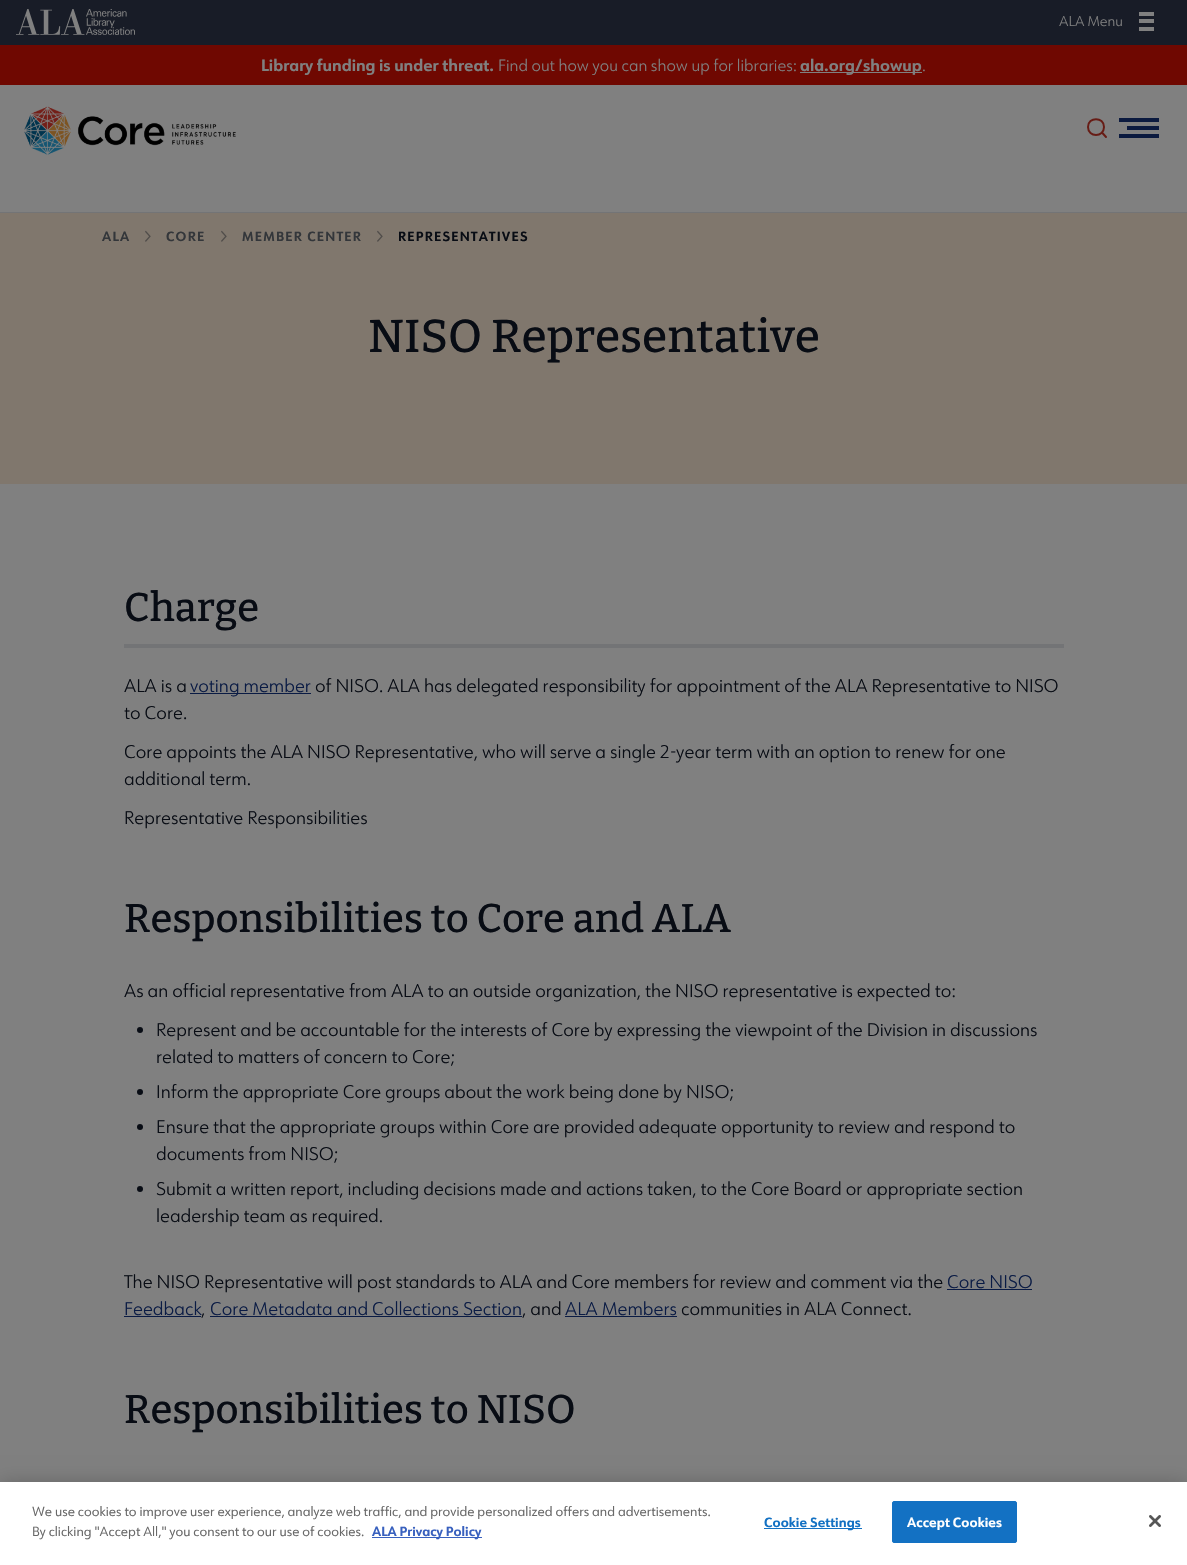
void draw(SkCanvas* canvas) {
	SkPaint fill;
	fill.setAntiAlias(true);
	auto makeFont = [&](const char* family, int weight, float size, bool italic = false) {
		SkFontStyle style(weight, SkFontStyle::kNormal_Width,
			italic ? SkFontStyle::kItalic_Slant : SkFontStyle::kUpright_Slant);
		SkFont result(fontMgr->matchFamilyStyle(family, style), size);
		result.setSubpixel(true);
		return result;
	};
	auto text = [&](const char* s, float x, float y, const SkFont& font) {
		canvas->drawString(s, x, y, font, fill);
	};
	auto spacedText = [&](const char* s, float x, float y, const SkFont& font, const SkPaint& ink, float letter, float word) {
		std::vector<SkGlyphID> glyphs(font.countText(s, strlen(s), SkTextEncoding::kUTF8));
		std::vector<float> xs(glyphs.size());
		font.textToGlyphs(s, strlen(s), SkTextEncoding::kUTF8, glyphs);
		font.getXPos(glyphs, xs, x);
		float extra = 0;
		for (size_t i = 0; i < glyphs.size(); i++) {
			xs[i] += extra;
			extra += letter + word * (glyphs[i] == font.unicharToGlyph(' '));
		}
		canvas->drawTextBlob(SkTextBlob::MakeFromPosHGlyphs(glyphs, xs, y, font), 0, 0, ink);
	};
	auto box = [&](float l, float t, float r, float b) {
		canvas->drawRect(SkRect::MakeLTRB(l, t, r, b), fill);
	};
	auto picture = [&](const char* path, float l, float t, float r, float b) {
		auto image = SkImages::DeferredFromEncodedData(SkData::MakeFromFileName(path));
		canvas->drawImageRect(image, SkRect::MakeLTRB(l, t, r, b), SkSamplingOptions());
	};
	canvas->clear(0xFF808080);
	fill.setColor(0xFF737476);
	box(0, 212, 1187, 213);
	fill.setColor(0xFF181C27);
	box(0, 0, 1187, 45);
	picture("image0.png", 16, 9, 135, 35);
	fill.setColor(0xFF808080);
	box(1139, 12, 1154, 16);
	box(1139, 19, 1154, 23);
	box(1139, 27, 1154, 31);
	fill.setColor(0xFF6F0801);
	box(0, 45, 1187, 85);
	fill.setColor(0xFF808080);
	box(800, 72, 922, 73);
	picture("image1.png", 24, 106, 236, 155);
	fill.setStyle(SkPaint::kStroke_Style);
	fill.setStrokeWidth(2);
	fill.setStrokeCap(SkPaint::kRound_Cap);
	fill.setColor(0xFF671C15);
	canvas->drawPath(SkPathBuilder().moveTo(1106, 137).lineTo(1102, 132.5f).moveTo(1104, 127).cubicTo(1104, 137.5f, 1088, 137.5f, 1088, 127).cubicTo(1088, 116.5f, 1104, 116.5f, 1104, 127).close().detach(), fill);
	fill.setStyle(SkPaint::kFill_Style);
	fill.setColor(0xFF0B1A3F);
	box(1119, 118, 1159, 122);
	box(1127, 126, 1159, 130);
	box(1119, 134, 1159, 138);
	fill.setColor(0xFF80776D);
	box(0, 213, 1187, 484);
	picture("image2.png", 145, 230, 151, 242);
	picture("image2.png", 221, 230, 227, 242);
	picture("image2.png", 377, 230, 383, 242);
	fill.setColor(0xFF737476);
	box(124, 644, 1064, 648);
	fill.setColor(0xFF0A1B44);
	box(190, 693, 311, 694);
	fill.setColor(0xFF080C14);
	canvas->drawCircle(140, 1030, 3, fill);
	canvas->drawCircle(140, 1092, 3, fill);
	canvas->drawCircle(140, 1127, 3, fill);
	canvas->drawCircle(140, 1189, 3, fill);
	fill.setColor(0xFF0A1B44);
	box(947, 1289, 1032, 1290);
	box(124, 1316, 201, 1317);
	box(210, 1316, 522, 1317);
	box(565, 1316, 677, 1317);
	fill.setColor(0x33000000);
	fill.setMaskFilter(SkMaskFilter::MakeBlur(kNormal_SkBlurStyle, 9));
	canvas->drawRect(SkRect::MakeLTRB(0, 1482, 1187, 1565), fill);
	fill.setMaskFilter(nullptr);
	fill.setColor(0xFFFFFFFF);
	box(0, 1482, 1187, 1565);
	fill.setColor(0xFF3860BE);
	box(372, 1537, 482, 1538);
	fill.setColor(0xFF1371C3);
	box(764, 1528, 862, 1529);
	canvas->drawRoundRect(SkRect::MakeLTRB(892.5f, 1501.5f, 1016.5f, 1542.5f), 1.5f, 1.5f, fill);
	fill.setStyle(SkPaint::kStroke_Style);
	fill.setStrokeWidth(1);
	fill.setStrokeCap(SkPaint::kButt_Cap);
	canvas->drawRoundRect(SkRect::MakeLTRB(892.5f, 1501.5f, 1016.5f, 1542.5f), 1.5f, 1.5f, fill);
	picture("image3.png", 1149, 1515, 1161, 1527);
	auto font1 = makeFont("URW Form", 300, 14);
	fill.setStyle(SkPaint::kFill_Style);
	fill.setColor(0xFF808080);
	text("ALA Menu", 1059, 26, font1);
	auto font2 = makeFont("URW Form", 700, 16);
	text("Library funding is under threat.", 261, 71, font2);
	auto font3 = makeFont("URW Form", 300, 16);
	text("Find out how you can show up for libraries:", 498, 71, font3);
	text("ala.org/showup", 800, 71, font2);
	text(".", 922, 71, font3);
	auto font4 = makeFont("URW Form", 700, 13);
	fill.setColor(0xFF33363A);
	spacedText("ALA", 102, 241, font4, fill, 1.25f, 0);
	spacedText("CORE", 166, 241, font4, fill, 1.25f, 0);
	spacedText("MEMBER CENTER", 242, 241, font4, fill, 1.25f, 0);
	fill.setColor(0xFF080C14);
	spacedText("REPRESENTATIVES", 398, 241, font4, fill, 1.25f, 0);
	auto font5 = makeFont("Bitter", 500, 46);
	text("NISO Representative", 368, 352, font5);
	auto font6 = makeFont("Bitter", 500, 40);
	text("Charge", 124, 621, font6);
	auto font7 = makeFont("URW Form", 300, 18);
	text("ALA is a", 124, 692, font7);
	fill.setColor(0xFF0A1B44);
	text("voting member", 190, 692, font7);
	fill.setColor(0xFF080C14);
	text("of NISO. ALA has delegated responsibility for appointment of the ALA Representative to NISO", 315, 692, font7);
	text("to Core.", 124, 719, font7);
	text("Core appoints the ALA NISO Representative, who will serve a single 2-year term with an option to renew for one", 124, 758, font7);
	text("additional term.", 124, 785, font7);
	text("Representative Responsibilities", 124, 824, font7);
	text("Responsibilities to Core and ALA", 124, 932, font6);
	text("As an official representative from ALA to an outside organization, the NISO representative is expected to:", 124, 997, font7);
	text("Represent and be accountable for the interests of Core by expressing the viewpoint of the Division in discussions", 156, 1036, font7);
	text("related to matters of concern to Core;", 156, 1063, font7);
	text("Inform the appropriate Core groups about the work being done by NISO;", 156, 1098, font7);
	text("Ensure that the appropriate groups within Core are provided adequate opportunity to review and respond to", 156, 1133, font7);
	text("documents from NISO;", 156, 1160, font7);
	text("Submit a written report, including decisions made and actions taken, to the Core Board or appropriate section", 156, 1195, font7);
	text("leadership team as required.", 156, 1222, font7);
	text("The NISO Representative will post standards to ALA and Core members for review and comment via the", 124, 1288, font7);
	fill.setColor(0xFF0A1B44);
	text("Core NISO", 947, 1288, font7);
	text("Feedback", 124, 1315, font7);
	fill.setColor(0xFF080C14);
	text(",", 201, 1315, font7);
	fill.setColor(0xFF0A1B44);
	text("Core Metadata and Collections Section", 210, 1315, font7);
	fill.setColor(0xFF080C14);
	text(", and", 522, 1315, font7);
	fill.setColor(0xFF0A1B44);
	text("ALA Members", 565, 1315, font7);
	fill.setColor(0xFF080C14);
	text("communities in ALA Connect.", 681, 1315, font7);
	text("Responsibilities to NISO", 124, 1423, font6);
	auto font8 = makeFont("URW Form", 400, 13);
	fill.setColor(0xFF696969);
	text("We use cookies to improve user experience, analyze web traffic, and provide personalized offers and advertisements.", 32, 1516, font8);
	text("By clicking \"Accept All,\" you consent to our use of cookies.", 32, 1536, font8);
	fill.setColor(0xFF3860BE);
	text("ALA Privacy Policy", 372, 1536, font4);
	fill.setColor(0xFF1371C3);
	spacedText("Cookie Settings", 764, 1527, font4, fill, 0.1f, 0);
	fill.setColor(0xFFFFFFFF);
	spacedText("Accept Cookies", 907, 1527, font4, fill, 0.1f, 0);
}
